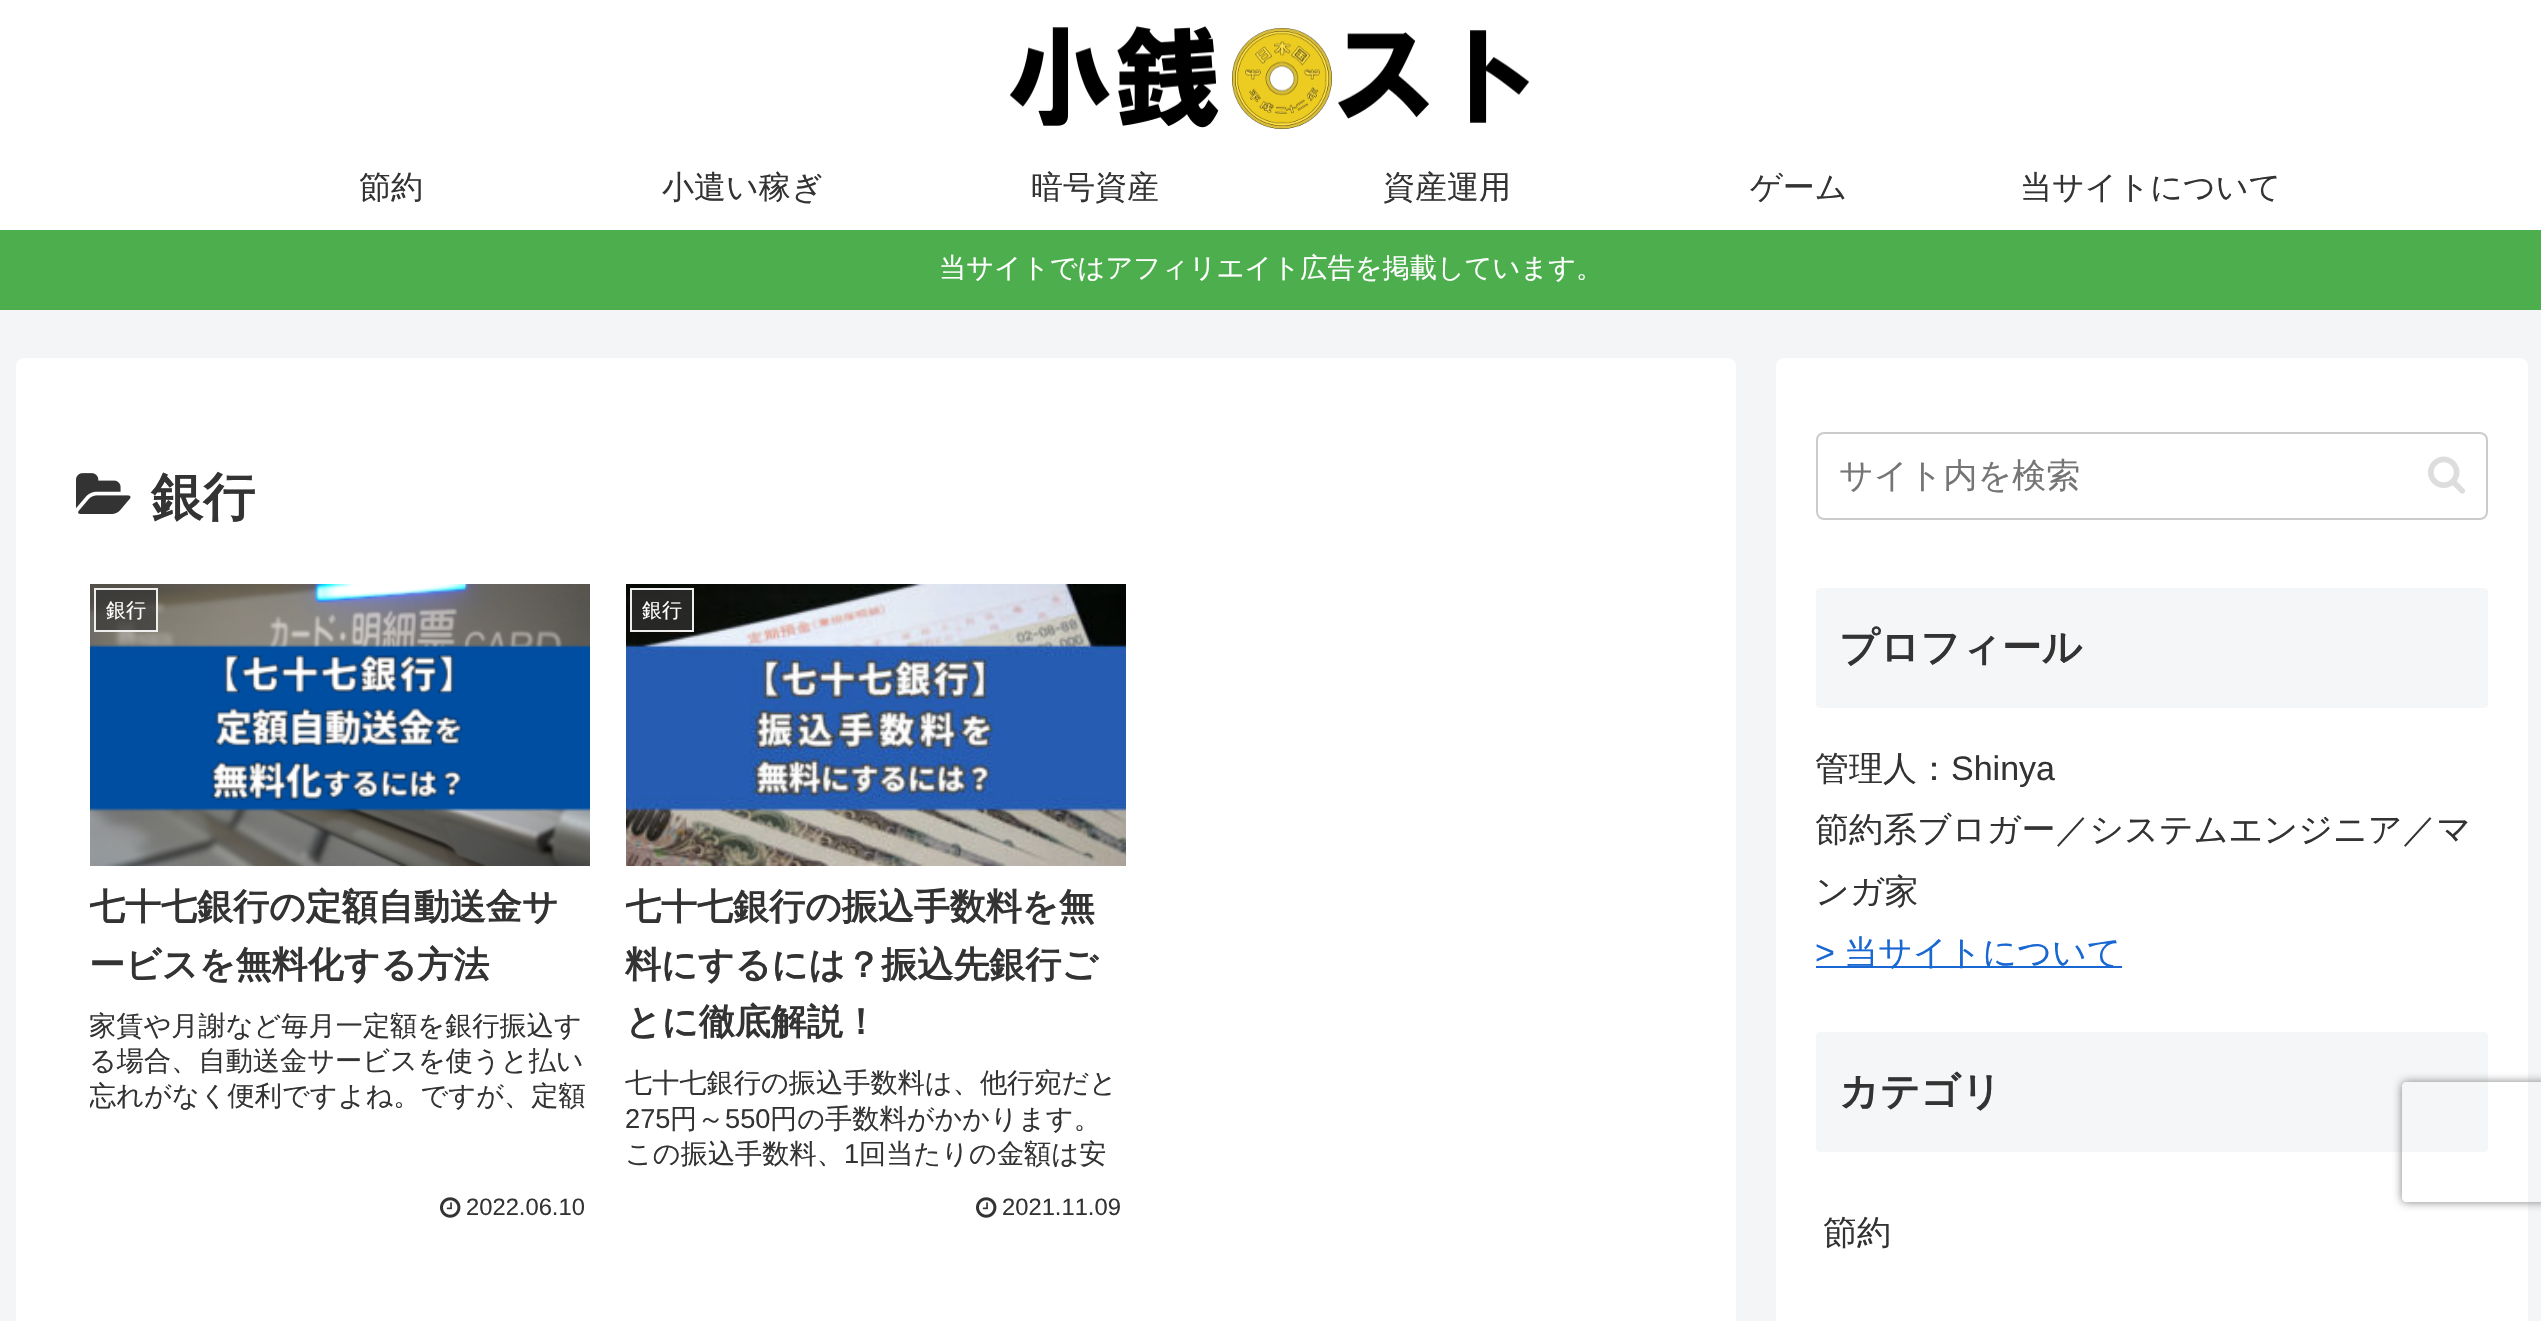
void draw(SkCanvas* canvas) {
	SkPaint fill;
	fill.setAntiAlias(true);
	auto makeFont = [&](const char* family, int weight, float size, bool italic = false) {
		SkFontStyle style(weight, SkFontStyle::kNormal_Width,
			italic ? SkFontStyle::kItalic_Slant : SkFontStyle::kUpright_Slant);
		SkFont result(fontMgr->matchFamilyStyle(family, style), size);
		result.setSubpixel(true);
		return result;
	};
	auto text = [&](const char* s, float x, float y, const SkFont& font) {
		canvas->drawString(s, x, y, font, fill);
	};
	auto box = [&](float l, float t, float r, float b) {
		canvas->drawRect(SkRect::MakeLTRB(l, t, r, b), fill);
	};
	auto roundBox = [&](float l, float t, float r, float b, float radius) {
		canvas->drawRoundRect(SkRect::MakeLTRB(l, t, r, b), radius, radius, fill);
	};
	auto picture = [&](const char* path, float l, float t, float r, float b) {
		auto image = SkImages::DeferredFromEncodedData(SkData::MakeFromFileName(path));
		canvas->drawImageRect(image, SkRect::MakeLTRB(l, t, r, b), SkSamplingOptions());
	};
	canvas->clear(0xFFF4F5F7);
	fill.setColor(0xFFFFFFFF);
	box(0, 0, 2541, 230);
	picture("image0.png", 1009, 26, 1529, 129);
	fill.setColor(0xFF4CAE4C);
	box(0, 230, 2541, 310);
	fill.setColor(0xFFFFFFFF);
	roundBox(16, 358, 1736, 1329, 8);
	picture("image1.png", 76, 473, 131, 514);
	picture("image2.png", 90, 584, 590, 866);
	fill.setColor(0xB3333333);
	canvas->drawRect(SkRect::MakeLTRB(95, 589, 157, 631), fill);
	fill.setStyle(SkPaint::kStroke_Style);
	fill.setStrokeWidth(2);
	fill.setColor(0xFFEEEEEE);
	canvas->drawRect(SkRect::MakeLTRB(95, 589, 157, 631), fill);
	picture("image3.png", 440, 1197, 461, 1218);
	picture("image4.png", 626, 584, 1126, 866);
	fill.setStyle(SkPaint::kFill_Style);
	fill.setColor(0xB3333333);
	canvas->drawRect(SkRect::MakeLTRB(631, 589, 693, 631), fill);
	fill.setStyle(SkPaint::kStroke_Style);
	fill.setColor(0xFFEEEEEE);
	canvas->drawRect(SkRect::MakeLTRB(631, 589, 693, 631), fill);
	picture("image3.png", 976, 1197, 997, 1218);
	fill.setStyle(SkPaint::kFill_Style);
	fill.setColor(0xFFFFFFFF);
	roundBox(1776, 358, 2528, 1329, 8);
	fill.setStyle(SkPaint::kStroke_Style);
	fill.setColor(0xFFCCCCCC);
	canvas->drawRoundRect(SkRect::MakeLTRB(1817, 433, 2487, 519), 7, 7, fill);
	picture("image5.png", 2428, 456, 2465, 494);
	fill.setStyle(SkPaint::kFill_Style);
	fill.setColor(0xFFF5F6F7);
	roundBox(1816, 588, 2488, 708, 4);
	fill.setColor(0xFF1967D2);
	box(1816, 966, 2122, 968);
	fill.setColor(0xFFF5F6F7);
	roundBox(1816, 1032, 2488, 1152, 4);
	canvas->save();
	canvas->clipPath(SkPathBuilder(SkPathFillType::kEvenOdd).moveTo(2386, 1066).lineTo(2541, 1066).lineTo(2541, 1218).lineTo(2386, 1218).close().moveTo(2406, 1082).lineTo(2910, 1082).cubicTo(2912, 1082, 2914, 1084, 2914, 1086).lineTo(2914, 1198).cubicTo(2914, 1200, 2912, 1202, 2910, 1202).lineTo(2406, 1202).cubicTo(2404, 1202, 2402, 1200, 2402, 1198).lineTo(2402, 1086).cubicTo(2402, 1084, 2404, 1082, 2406, 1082).close().detach(), true);
	fill.setColor(0xFF808080);
	fill.setMaskFilter(SkMaskFilter::MakeBlur(kNormal_SkBlurStyle, 5));
	canvas->drawRoundRect(SkRect::MakeLTRB(2402, 1082, 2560, 1202), 4, 4, fill);
	fill.setMaskFilter(nullptr);
	canvas->restore();
	auto font1 = makeFont("WenQuanYi Zen Hei", 500, 32);
	fill.setColor(0xFF333333);
	text("節約", 359, 198, font1);
	text("小遣い稼ぎ", 662, 198, font1);
	text("暗号資産", 1031, 198, font1);
	text("資産運用", 1383, 198, font1);
	text("ゲーム", 1750, 198, font1);
	text("当サイトについて", 2020, 198, font1);
	auto font2 = makeFont("WenQuanYi Zen Hei", 500, 27.2f);
	fill.setColor(0xFFFFFFFF);
	text("当サイトではアフィリエイト広告を掲載しています。", 939, 277, font2);
	auto font3 = makeFont("WenQuanYi Zen Hei", 700, 52);
	fill.setColor(0xFF333333);
	text("銀行", 151, 515, font3);
	auto font4 = makeFont("WenQuanYi Zen Hei", 500, 20);
	fill.setColor(0xFFFFFFFF);
	text("銀行", 106, 617, font4);
	canvas->save();
	canvas->clipRect(SkRect::MakeLTRB(90, 880, 590, 994));
	auto font5 = makeFont("WenQuanYi Zen Hei", 700, 36);
	fill.setColor(0xFF333333);
	text("七十七銀行の定額自動送金サ", 89, 919, font5);
	canvas->restore();
	text("ービスを無料化する方法", 89, 977, font5);
	text("家賃や月謝など毎月一定額を銀行振込す", 89, 1035, font2);
	text("る場合、自動送金サービスを使うと払い", 89, 1070, font2);
	canvas->save();
	canvas->clipRect(SkRect::MakeLTRB(90, 1008, 590, 1114));
	text("忘れがなく便利ですよね。ですが、定額", 89, 1105, font2);
	canvas->restore();
	auto font6 = makeFont("Liberation Sans", 400, 23.75f);
	text("2022.06.10", 466, 1215, font6);
	fill.setColor(0xFFFFFFFF);
	text("銀行", 642, 617, font4);
	canvas->save();
	canvas->clipRect(SkRect::MakeLTRB(626, 880, 1126, 1052));
	fill.setColor(0xFF333333);
	text("七十七銀行の振込手数料を無", 625, 919, font5);
	canvas->restore();
	text("料にするには？振込先銀行ご", 625, 977, font5);
	text("とに徹底解説！", 625, 1034, font5);
	text("七十七銀行の振込手数料は、他行宛だと", 625, 1092, font2);
	auto font7 = makeFont("Liberation Sans", 400, 27.2f);
	text("275", 625, 1128, font7);
	text("円～", 670, 1128, font2);
	text("550", 725, 1128, font7);
	text("円の手数料がかかります。", 770, 1128, font2);
	text("この振込手数料、", 625, 1163, font2);
	text("1", 844, 1163, font7);
	text("回当たりの金額は安", 859, 1163, font2);
	text("2021.11.09", 1002, 1215, font6);
	auto font8 = makeFont("WenQuanYi Zen Hei", 500, 34);
	fill.setColor(0xFF757575);
	text("サイト内を検索", 1839, 487, font8);
	auto font9 = makeFont("WenQuanYi Zen Hei", 700, 39.75f);
	fill.setColor(0xFF333333);
	text("プロフィール", 1839, 661, font9);
	text("管理人：", 1815, 780, font8);
	auto font10 = makeFont("Liberation Sans", 400, 34);
	text("Shinya", 1951, 780, font10);
	text("節約系ブロガー／システムエンジニア／マ", 1815, 841, font8);
	text("ンガ家", 1815, 903, font8);
	fill.setColor(0xFF1967D2);
	text(">", 1815, 964, font10);
	text("当サイトについて", 1844, 964, font8);
	fill.setColor(0xFF333333);
	text("カテゴリ", 1839, 1105, font9);
	text("節約", 1823, 1244, font8);
}
